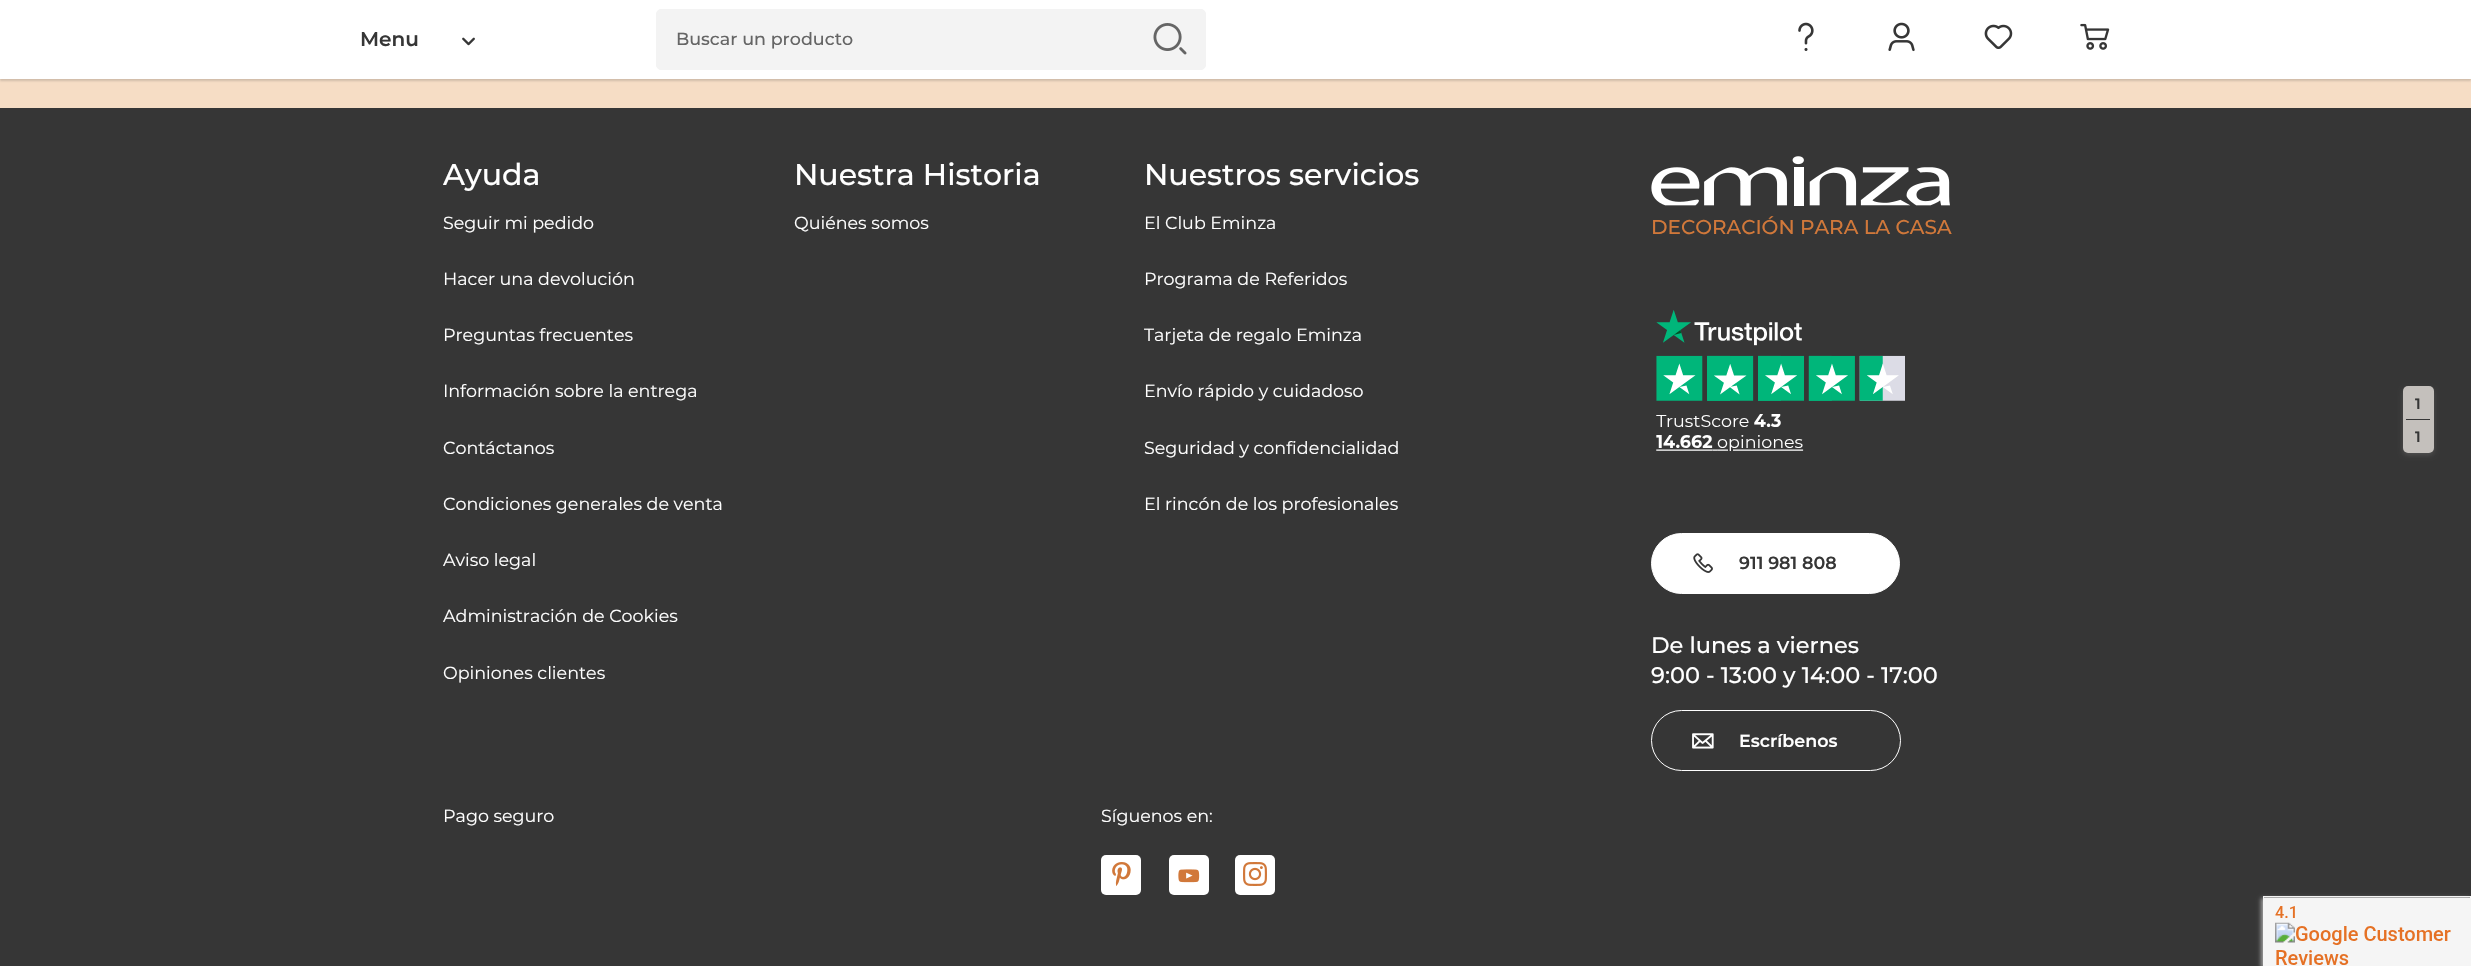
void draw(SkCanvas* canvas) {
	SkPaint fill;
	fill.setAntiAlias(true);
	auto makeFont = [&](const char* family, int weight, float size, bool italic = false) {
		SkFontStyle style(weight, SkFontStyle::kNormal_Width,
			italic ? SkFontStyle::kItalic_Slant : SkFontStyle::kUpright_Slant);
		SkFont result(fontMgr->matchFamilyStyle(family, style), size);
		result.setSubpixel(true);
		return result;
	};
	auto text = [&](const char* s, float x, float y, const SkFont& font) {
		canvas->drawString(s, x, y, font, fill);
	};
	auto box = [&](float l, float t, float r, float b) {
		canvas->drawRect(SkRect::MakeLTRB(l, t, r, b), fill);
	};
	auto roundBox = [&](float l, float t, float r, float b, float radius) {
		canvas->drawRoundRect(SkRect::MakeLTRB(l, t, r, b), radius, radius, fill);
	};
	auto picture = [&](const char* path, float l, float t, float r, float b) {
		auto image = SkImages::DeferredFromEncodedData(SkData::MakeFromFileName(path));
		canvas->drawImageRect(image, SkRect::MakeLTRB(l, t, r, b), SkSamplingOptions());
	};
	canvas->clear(0xFFF6DDC5);
	fill.setColor(0x33363636);
	fill.setMaskFilter(SkMaskFilter::MakeBlur(kNormal_SkBlurStyle, 1));
	canvas->drawRect(SkRect::MakeLTRB(0, 3, 2471, 81), fill);
	fill.setMaskFilter(nullptr);
	fill.setColor(0xFFFFFFFF);
	box(0, 0, 2471, 79);
	picture("image0.png", 462, 37, 475, 46);
	fill.setColor(0xFFF3F3F3);
	canvas->drawRoundRect(SkRect::MakeLTRB(656.5f, 9.5f, 1205.5f, 69.5f), 4.5f, 4.5f, fill);
	fill.setStyle(SkPaint::kStroke_Style);
	fill.setStrokeWidth(1);
	canvas->drawRoundRect(SkRect::MakeLTRB(656.5f, 9.5f, 1205.5f, 69.5f), 4.5f, 4.5f, fill);
	picture("image1.png", 1153, 23, 1187, 55);
	picture("image2.png", 1798, 22, 1814, 51);
	picture("image3.png", 1888, 22, 1915, 52);
	picture("image4.png", 1984, 24, 2013, 49);
	picture("image5.png", 2080, 23, 2110, 50);
	fill.setStyle(SkPaint::kFill_Style);
	fill.setColor(0xFF363636);
	box(0, 108, 2471, 966);
	picture("image6.png", 1651, 156, 1950, 206);
	picture("image7.png", 1656, 310, 1905, 451);
	fill.setColor(0xFFFFFFFF);
	canvas->drawRoundRect(SkRect::MakeLTRB(1651.5f, 533.5f, 1899.5f, 593.5f), 30, 30, fill);
	fill.setStyle(SkPaint::kStroke_Style);
	canvas->drawRoundRect(SkRect::MakeLTRB(1651.5f, 533.5f, 1899.5f, 593.5f), 30, 30, fill);
	picture("image8.png", 1693, 553, 1713, 573);
	canvas->drawRoundRect(SkRect::MakeLTRB(1651.5f, 710.5f, 1900.5f, 770.5f), 30, 30, fill);
	picture("image9.png", 1692, 733, 1714, 749);
	fill.setStyle(SkPaint::kFill_Style);
	roundBox(1101, 855, 1141, 895, 5);
	picture("image10.png", 1112, 862, 1131, 886);
	roundBox(1169, 855, 1209, 895, 5);
	picture("image11.png", 1178, 869, 1200, 883);
	roundBox(1235, 855, 1275, 895, 5);
	picture("image12.png", 1243, 862, 1267, 886);
	canvas->save();
	canvas->clipPath(SkPathBuilder(SkPathFillType::kEvenOdd).moveTo(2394, 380).lineTo(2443, 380).lineTo(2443, 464).lineTo(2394, 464).close().moveTo(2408, 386).lineTo(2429, 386).cubicTo(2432, 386, 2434, 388, 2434, 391).lineTo(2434, 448).cubicTo(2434, 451, 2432, 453, 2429, 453).lineTo(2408, 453).cubicTo(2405, 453, 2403, 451, 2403, 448).lineTo(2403, 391).cubicTo(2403, 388, 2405, 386, 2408, 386).close().detach(), true);
	fill.setColor(0x26F3EEE8);
	fill.setMaskFilter(SkMaskFilter::MakeBlur(kNormal_SkBlurStyle, 2.5f));
	canvas->drawRoundRect(SkRect::MakeLTRB(2403, 389, 2434, 455), 5, 5, fill);
	fill.setMaskFilter(nullptr);
	canvas->restore();
	fill.setColor(0xBFF3EEE8);
	roundBox(2403, 386, 2434, 453, 5);
	fill.setColor(0xFF363636);
	box(2406, 419, 2430, 420);
	fill.setColor(0xFFA2A2A2);
	fill.setMaskFilter(SkMaskFilter::MakeBlur(kNormal_SkBlurStyle, 2));
	canvas->drawRect(SkRect::MakeLTRB(2261, 898, 2470, 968), fill);
	fill.setMaskFilter(nullptr);
	fill.setStyle(SkPaint::kStroke_Style);
	fill.setColor(0xFFF5F5F5);
	canvas->drawRect(SkRect::MakeLTRB(2263.5f, 896.5f, 2470.5f, 965.5f), fill);
	picture("image13.png", 2264, 897, 2470, 965);
	auto font1 = makeFont("Montserrat", 600, 20);
	fill.setStyle(SkPaint::kFill_Style);
	fill.setColor(0xFF363636);
	text("Menu", 360, 46, font1);
	auto font2 = makeFont("Montserrat", 500, 17.5f);
	fill.setColor(0xFF656565);
	text("Buscar un producto", 676, 45, font2);
	auto font3 = makeFont("Montserrat", 500, 30);
	fill.setColor(0xFFFFFFFF);
	text("Ayuda", 443, 185, font3);
	auto font4 = makeFont("Montserrat", 400, 17.5f);
	text("Seguir mi pedido", 443, 229, font4);
	text("Hacer una devolución", 443, 285, font4);
	text("Preguntas frecuentes", 443, 341, font4);
	text("Información sobre la entrega", 443, 397, font4);
	text("Contáctanos", 443, 454, font4);
	text("Condiciones generales de venta", 443, 510, font4);
	text("Aviso legal", 443, 566, font4);
	text("Administración de Cookies", 443, 622, font4);
	text("Opiniones clientes", 443, 679, font4);
	text("Nuestra Historia", 794, 185, font3);
	text("Quiénes somos", 794, 229, font4);
	text("Nuestros servicios", 1144, 185, font3);
	text("El Club Eminza", 1144, 229, font4);
	text("Programa de Referidos", 1144, 285, font4);
	text("Tarjeta de regalo Eminza", 1144, 341, font4);
	text("Envío rápido y cuidadoso", 1144, 397, font4);
	text("Seguridad y confidencialidad", 1144, 454, font4);
	text("El rincón de los profesionales", 1144, 510, font4);
	auto font5 = makeFont("Montserrat", 500, 20);
	fill.setColor(0xFFD1783A);
	text("DECORACIÓN PARA LA CASA", 1651, 234, font5);
	auto font6 = makeFont("Montserrat", 600, 17.5f);
	fill.setColor(0xFF363636);
	text("911 981 808", 1739, 569, font6);
	auto font7 = makeFont("Montserrat", 500, 22.5f);
	fill.setColor(0xFFFFFFFF);
	text("De lunes a viernes", 1651, 653, font7);
	text("9:00 - 13:00 y 14:00 - 17:00", 1651, 683, font7);
	text("Escríbenos", 1739, 747, font6);
	text("Pago seguro", 443, 822, font4);
	text("Síguenos en:", 1101, 822, font4);
	auto font8 = makeFont("Montserrat", 600, 15);
	fill.setColor(0xFF363636);
	text("1", 2415, 409, font8);
	text("1", 2415, 442, font8);
}
